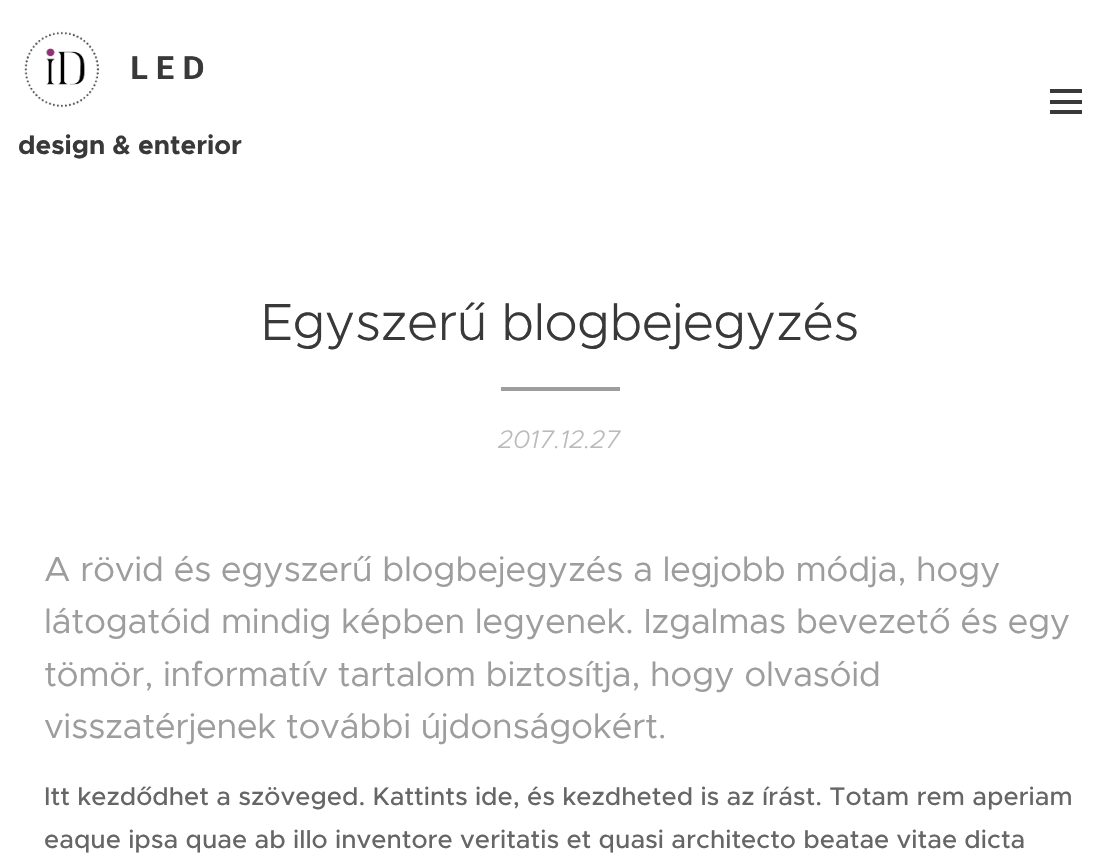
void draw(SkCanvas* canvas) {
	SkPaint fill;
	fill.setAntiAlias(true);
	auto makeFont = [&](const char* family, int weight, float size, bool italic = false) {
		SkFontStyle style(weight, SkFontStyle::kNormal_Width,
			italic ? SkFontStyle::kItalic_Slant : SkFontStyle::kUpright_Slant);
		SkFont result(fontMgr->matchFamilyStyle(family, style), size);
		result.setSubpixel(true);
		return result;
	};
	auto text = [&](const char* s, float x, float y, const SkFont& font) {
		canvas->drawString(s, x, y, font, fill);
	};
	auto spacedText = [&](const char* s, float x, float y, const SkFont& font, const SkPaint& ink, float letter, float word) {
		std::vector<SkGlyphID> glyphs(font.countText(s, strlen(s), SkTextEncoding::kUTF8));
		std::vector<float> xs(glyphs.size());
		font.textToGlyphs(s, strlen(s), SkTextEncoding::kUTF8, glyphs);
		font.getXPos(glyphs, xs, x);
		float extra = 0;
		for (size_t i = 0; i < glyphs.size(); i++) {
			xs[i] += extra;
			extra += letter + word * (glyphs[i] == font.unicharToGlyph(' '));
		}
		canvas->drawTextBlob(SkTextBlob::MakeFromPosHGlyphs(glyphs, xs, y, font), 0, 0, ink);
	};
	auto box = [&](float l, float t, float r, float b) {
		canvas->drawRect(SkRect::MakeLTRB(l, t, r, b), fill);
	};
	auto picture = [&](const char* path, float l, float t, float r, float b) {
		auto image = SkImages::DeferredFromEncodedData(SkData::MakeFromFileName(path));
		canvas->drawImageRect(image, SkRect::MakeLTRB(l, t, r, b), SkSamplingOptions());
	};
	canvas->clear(0xFFFFFFFF);
	picture("image0.png", 24, 31, 100, 108);
	fill.setColor(0xFF393939);
	box(1050, 100, 1082, 104);
	box(1050, 89, 1082, 93);
	box(1050, 110, 1082, 114);
	fill.setColor(0xFF9D9D9D);
	box(501, 387, 620, 391);
	auto font1 = makeFont("Roboto Flex", 700, 32);
	fill.setColor(0xFF393939);
	text("L E D", 130, 79, font1);
	auto font2 = makeFont("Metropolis", 700, 26.5f);
	text("design & enterior", 18, 154, font2);
	auto font3 = makeFont("Metropolis", 300, 52.5f);
	spacedText("Egyszerű blogbejegyzés", 261, 340, font3, fill, -0.5f, 0);
	auto font4 = makeFont("Metropolis", 300, 25.55f, true);
	fill.setColor(0xFFBABABA);
	text("2017.12.27", 498, 448, font4);
	auto font5 = makeFont("Metropolis", 400, 35);
	fill.setColor(0xFF9D9D9D);
	spacedText("A rövid és egyszerű blogbejegyzés a legjobb módja, hogy", 44, 581, font5, fill, -0.35f, 0);
	spacedText("látogatóid mindig képben legyenek. Izgalmas bevezető és egy", 44, 633, font5, fill, -0.35f, 0);
	spacedText("tömör, informatív tartalom biztosítja, hogy olvasóid", 44, 686, font5, fill, -0.35f, 0);
	spacedText("visszatérjenek további újdonságokért.", 44, 738, font5, fill, -0.35f, 0);
	auto font6 = makeFont("Metropolis", 500, 25.55f);
	fill.setColor(0xFF666666);
	text("Itt kezdődhet a szöveged. Kattints ide, és kezdheted is az írást. Totam rem aperiam", 44, 805, font6);
	text("eaque ipsa quae ab illo inventore veritatis et quasi architecto beatae vitae dicta", 44, 848, font6);
}
